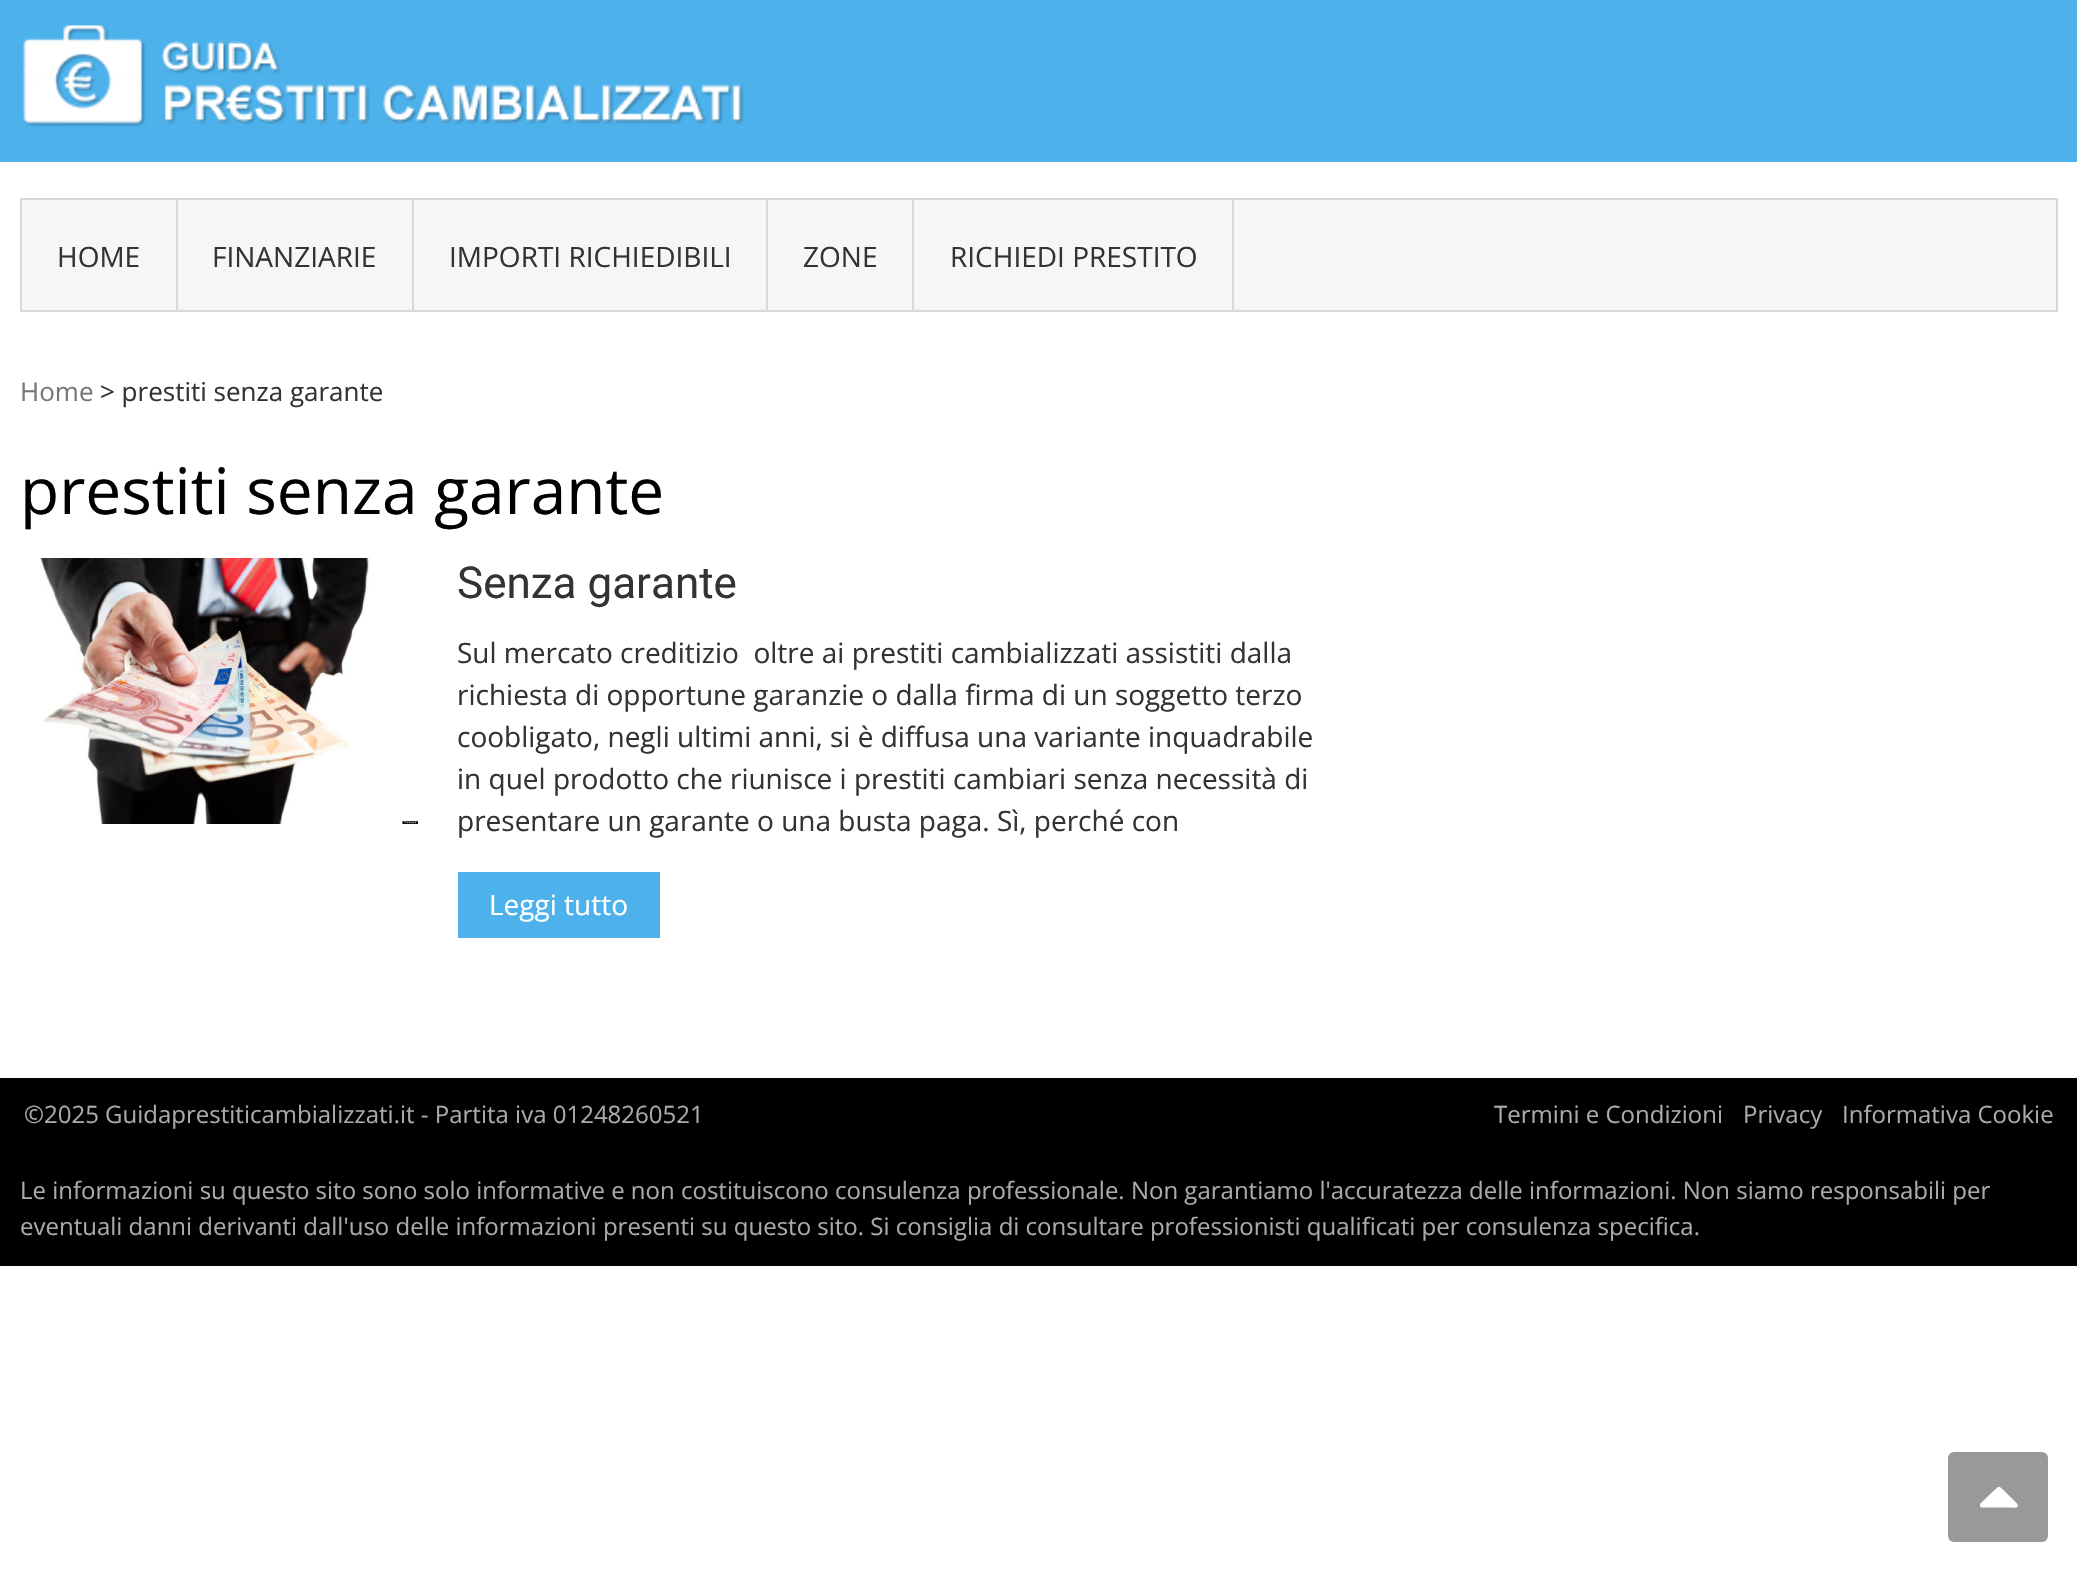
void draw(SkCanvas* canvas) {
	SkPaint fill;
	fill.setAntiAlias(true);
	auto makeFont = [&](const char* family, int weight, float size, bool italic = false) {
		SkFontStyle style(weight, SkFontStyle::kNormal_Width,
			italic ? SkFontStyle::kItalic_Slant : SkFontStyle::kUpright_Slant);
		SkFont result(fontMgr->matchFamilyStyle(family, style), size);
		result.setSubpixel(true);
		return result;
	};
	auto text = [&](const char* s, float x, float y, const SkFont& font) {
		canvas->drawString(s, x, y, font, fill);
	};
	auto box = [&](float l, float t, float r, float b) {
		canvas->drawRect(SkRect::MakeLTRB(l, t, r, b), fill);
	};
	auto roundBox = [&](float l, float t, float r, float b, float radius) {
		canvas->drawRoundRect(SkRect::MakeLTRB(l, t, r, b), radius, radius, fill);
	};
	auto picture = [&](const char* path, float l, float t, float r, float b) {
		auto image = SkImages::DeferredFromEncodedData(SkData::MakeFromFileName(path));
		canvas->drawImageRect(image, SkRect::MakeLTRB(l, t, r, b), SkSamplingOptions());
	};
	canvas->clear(0xFFFFFFFF);
	fill.setColor(0xFF4DB2EC);
	box(0, 0, 2077, 162);
	picture("image0.png", 23, 25, 744, 127);
	fill.setColor(0xFFF6F6F6);
	canvas->drawRect(SkRect::MakeLTRB(21, 199, 2057, 311), fill);
	fill.setStyle(SkPaint::kStroke_Style);
	fill.setStrokeWidth(2);
	fill.setColor(0xFFD9D8D8);
	canvas->drawRect(SkRect::MakeLTRB(21, 199, 2057, 311), fill);
	fill.setStyle(SkPaint::kFill_Style);
	box(176, 200, 178, 310);
	box(412, 200, 414, 310);
	box(766, 200, 768, 310);
	box(912, 200, 914, 310);
	box(1232, 200, 1234, 310);
	picture("image1.png", 40, 558, 418, 824);
	fill.setColor(0xFF4DB2EC);
	box(458, 872, 660, 938);
	fill.setColor(0xFF000000);
	box(0, 1078, 2077, 1266);
	fill.setColor(0xFF999999);
	roundBox(1948, 1452, 2048, 1542, 6);
	fill.setColor(0xFFFFFFFF);
	canvas->drawPath(SkPathBuilder().moveTo(2017, 1503.5f).lineTo(2017.5f, 1504.5f).cubicTo(2019.5f, 1509, 2010.5f, 1507.5f, 2010, 1507.5f).lineTo(1982, 1507.5f).cubicTo(1980, 1507.5f, 1979.5f, 1505, 1980.5f, 1503.5f).lineTo(1994.5f, 1490).cubicTo(1999, 1485.5f, 1998.5f, 1485.5f, 2003.5f, 1490).close().detach(), fill);
	auto font1 = makeFont("Open Sans", 400, 28);
	fill.setColor(0xFF333333);
	text("HOME", 57, 267, font1);
	text("FINANZIARIE", 212, 267, font1);
	text("IMPORTI RICHIEDIBILI", 449, 267, font1);
	text("ZONE", 803, 267, font1);
	text("RICHIEDI PRESTITO", 950, 267, font1);
	auto font2 = makeFont("Open Sans", 400, 26);
	fill.setColor(0xFF777777);
	text("Home", 20, 401, font2);
	fill.setColor(0xFF333333);
	text("> prestiti senza garante", 100, 401, font2);
	auto font3 = makeFont("Open Sans", 400, 64);
	fill.setColor(0xFF000000);
	text("prestiti senza garante", 20, 514, font3);
	auto font4 = makeFont("Roboto", 400, 44);
	fill.setColor(0xFF333333);
	text("Senza garante", 457, 598, font4);
	text("Sul mercato creditizio  oltre ai prestiti cambializzati assistiti dalla", 457, 663, font1);
	text("richiesta di opportune garanzie o dalla firma di un soggetto terzo", 457, 705, font1);
	text("coobligato, negli ultimi anni, si è diffusa una variante inquadrabile", 457, 747, font1);
	text("in quel prodotto che riunisce i prestiti cambiari senza necessità di", 457, 789, font1);
	text("presentare un garante o una busta paga. Sì, perché con", 457, 831, font1);
	fill.setColor(0xFFFFFFFF);
	text("Leggi tutto", 489, 915, font1);
	auto font5 = makeFont("Open Sans", 400, 24);
	fill.setColor(0xFFAAAAAA);
	text("©2025 Guidaprestiticambializzati.it - Partita iva 01248260521", 24, 1123, font5);
	text("Termini e Condizioni", 1494, 1123, font5);
	text("Privacy", 1743, 1123, font5);
	text("Informativa Cookie", 1842, 1123, font5);
	text("Le informazioni su questo sito sono solo informative e non costituiscono consulenza professionale. Non garantiamo l'accuratezza delle informazioni. Non siamo responsabili per", 20, 1199, font5);
	text("eventuali danni derivanti dall'uso delle informazioni presenti su questo sito. Si consiglia di consultare professionisti qualificati per consulenza specifica.", 20, 1235, font5);
}
